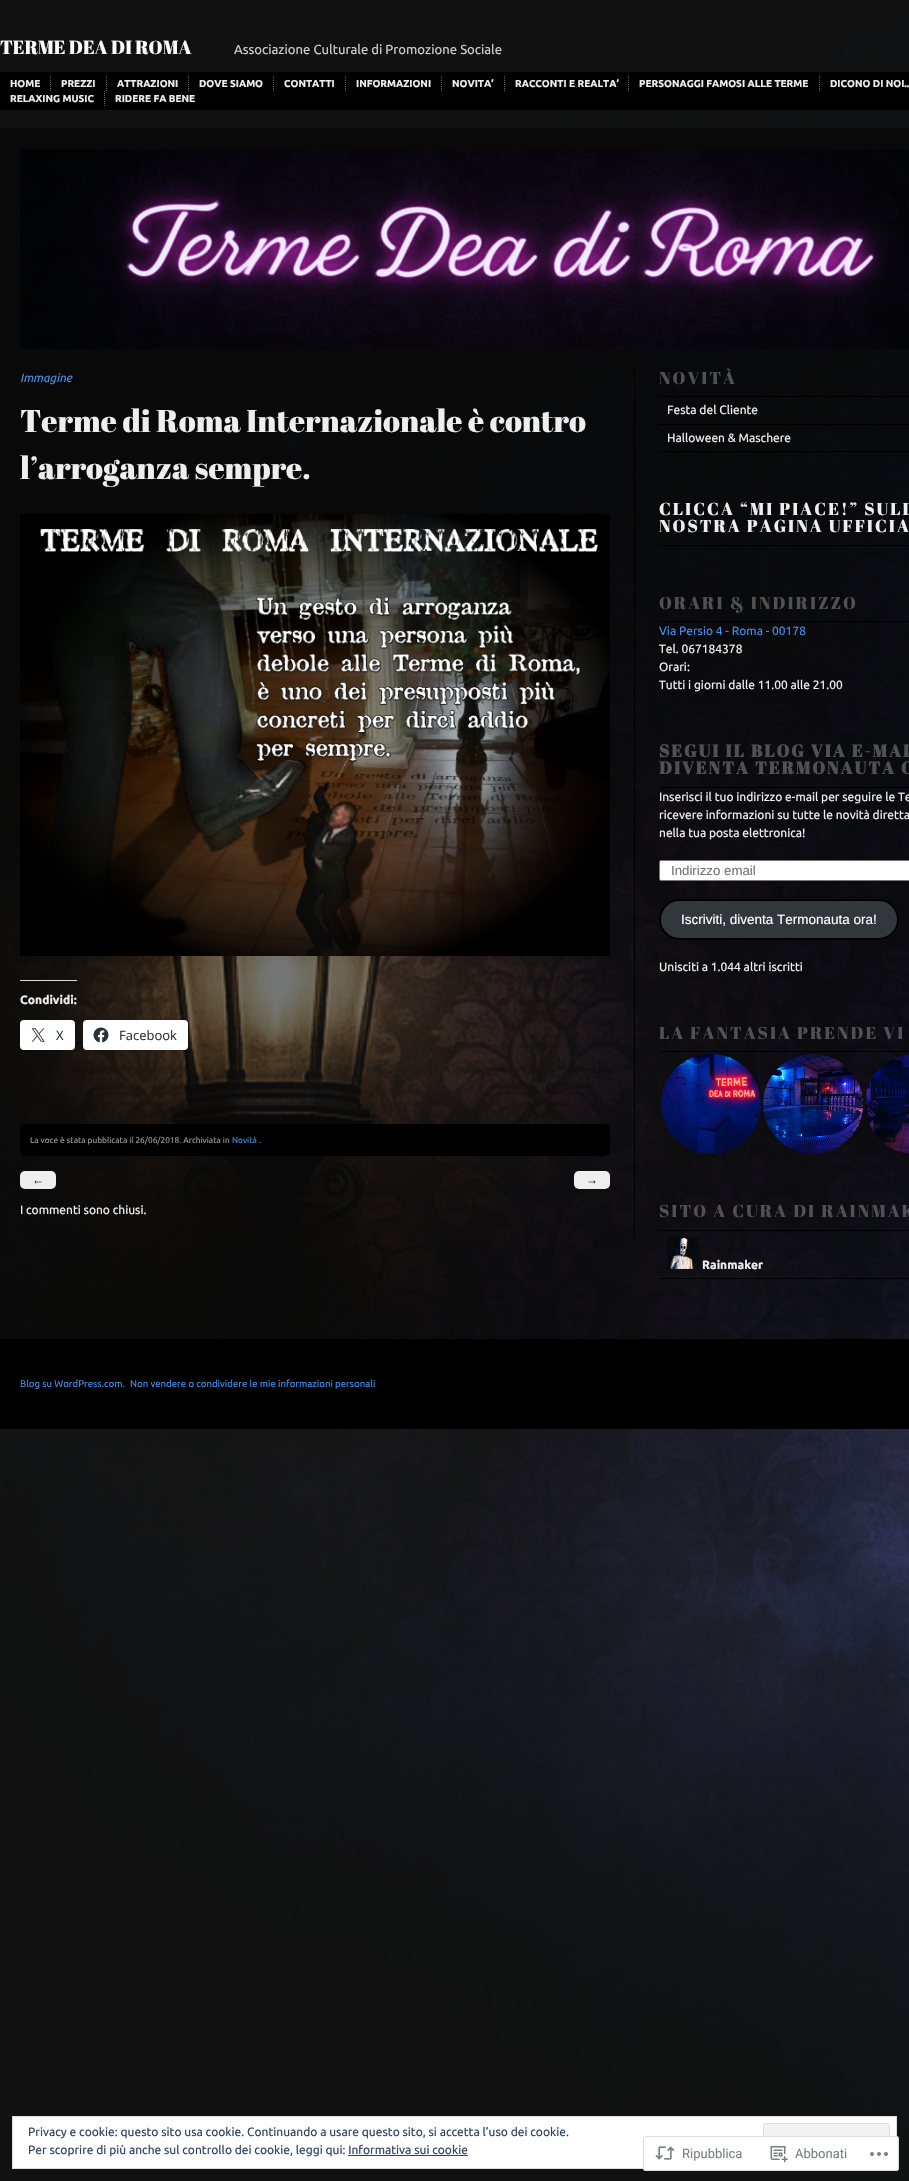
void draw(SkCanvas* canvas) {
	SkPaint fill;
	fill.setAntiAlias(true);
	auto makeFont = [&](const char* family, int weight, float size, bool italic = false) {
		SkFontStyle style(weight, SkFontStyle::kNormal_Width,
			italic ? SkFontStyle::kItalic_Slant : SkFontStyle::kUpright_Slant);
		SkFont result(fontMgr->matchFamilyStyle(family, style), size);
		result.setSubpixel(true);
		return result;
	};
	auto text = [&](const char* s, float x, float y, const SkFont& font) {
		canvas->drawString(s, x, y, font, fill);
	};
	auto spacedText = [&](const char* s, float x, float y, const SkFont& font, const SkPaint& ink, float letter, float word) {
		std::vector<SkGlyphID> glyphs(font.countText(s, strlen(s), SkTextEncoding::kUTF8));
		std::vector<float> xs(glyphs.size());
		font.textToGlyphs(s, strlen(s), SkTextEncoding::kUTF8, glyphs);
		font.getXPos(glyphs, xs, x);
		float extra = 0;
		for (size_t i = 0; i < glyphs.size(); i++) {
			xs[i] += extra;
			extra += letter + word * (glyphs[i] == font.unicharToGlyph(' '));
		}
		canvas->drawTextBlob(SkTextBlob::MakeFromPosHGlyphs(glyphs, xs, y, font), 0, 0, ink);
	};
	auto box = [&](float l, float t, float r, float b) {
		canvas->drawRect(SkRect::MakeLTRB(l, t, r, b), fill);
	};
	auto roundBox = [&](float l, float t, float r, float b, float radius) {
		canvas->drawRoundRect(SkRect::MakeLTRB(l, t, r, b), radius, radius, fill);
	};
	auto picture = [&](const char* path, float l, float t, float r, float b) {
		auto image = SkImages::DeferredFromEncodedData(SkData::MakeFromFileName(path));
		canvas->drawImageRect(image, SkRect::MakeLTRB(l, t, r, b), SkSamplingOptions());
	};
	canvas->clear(0xFFFFFFFF);
	picture("image0.png", 0, 0, 909, 2181);
	fill.setColor(0xFF000000);
	box(0, 72, 909, 110);
	fill.setStyle(SkPaint::kStroke_Style);
	fill.setStrokeWidth(1);
	fill.setColor(0xFF666666);
	fill.setPathEffect(SkDashPathEffect::Make({{1, 1}}, 0));
	canvas->drawPath(SkPathBuilder().moveTo(50.5f, 76).lineTo(50.5f, 91).detach(), fill);
	fill.setPathEffect(nullptr);
	fill.setPathEffect(SkDashPathEffect::Make({{1, 1}}, 0));
	canvas->drawPath(SkPathBuilder().moveTo(106.5f, 76).lineTo(106.5f, 91).detach(), fill);
	fill.setPathEffect(nullptr);
	fill.setPathEffect(SkDashPathEffect::Make({{1, 1}}, 0));
	canvas->drawPath(SkPathBuilder().moveTo(188.5f, 76).lineTo(188.5f, 91).detach(), fill);
	fill.setPathEffect(nullptr);
	fill.setPathEffect(SkDashPathEffect::Make({{1, 1}}, 0));
	canvas->drawPath(SkPathBuilder().moveTo(273.5f, 76).lineTo(273.5f, 91).detach(), fill);
	fill.setPathEffect(nullptr);
	fill.setPathEffect(SkDashPathEffect::Make({{1, 1}}, 0));
	canvas->drawPath(SkPathBuilder().moveTo(345.5f, 76).lineTo(345.5f, 91).detach(), fill);
	fill.setPathEffect(nullptr);
	fill.setPathEffect(SkDashPathEffect::Make({{1, 1}}, 0));
	canvas->drawPath(SkPathBuilder().moveTo(441.5f, 76).lineTo(441.5f, 91).detach(), fill);
	fill.setPathEffect(nullptr);
	fill.setPathEffect(SkDashPathEffect::Make({{1, 1}}, 0));
	canvas->drawPath(SkPathBuilder().moveTo(504.5f, 76).lineTo(504.5f, 91).detach(), fill);
	fill.setPathEffect(nullptr);
	fill.setPathEffect(SkDashPathEffect::Make({{1, 1}}, 0));
	canvas->drawPath(SkPathBuilder().moveTo(628.5f, 76).lineTo(628.5f, 91).detach(), fill);
	fill.setPathEffect(nullptr);
	fill.setPathEffect(SkDashPathEffect::Make({{1, 1}}, 0));
	canvas->drawPath(SkPathBuilder().moveTo(819.5f, 76).lineTo(819.5f, 91).detach(), fill);
	fill.setPathEffect(nullptr);
	fill.setPathEffect(SkDashPathEffect::Make({{1, 1}}, 0));
	canvas->drawPath(SkPathBuilder().moveTo(104.5f, 91).lineTo(104.5f, 106).detach(), fill);
	fill.setPathEffect(nullptr);
	fill.setStyle(SkPaint::kFill_Style);
	fill.setColor(0x80000000);
	box(0, 128, 909, 1339);
	picture("image1.png", 20, 149, 909, 349);
	fill.setColor(0xFF000000);
	box(634, 369, 635, 1237);
	picture("image2.png", 20, 514, 610, 956);
	fill.setColor(0xFFDCDCDE);
	box(20, 980, 77, 981);
	canvas->save();
	canvas->clipRect(SkRect::MakeLTRB(20, 369, 610, 1237));
	fill.setStyle(SkPaint::kStroke_Style);
	fill.setColor(0x1F000000);
	canvas->drawRoundRect(SkRect::MakeLTRB(19.5f, 1019.5f, 75.5f, 1050.5f), 4.5f, 4.5f, fill);
	canvas->restore();
	fill.setStyle(SkPaint::kFill_Style);
	fill.setColor(0xFFFFFFFF);
	roundBox(20, 1020, 75, 1050, 4);
	picture("image3.png", 31, 1028, 45, 1042);
	fill.setStyle(SkPaint::kStroke_Style);
	fill.setColor(0x1F000000);
	canvas->drawRoundRect(SkRect::MakeLTRB(82.5f, 1019.5f, 188.5f, 1050.5f), 4.5f, 4.5f, fill);
	fill.setStyle(SkPaint::kFill_Style);
	fill.setColor(0xFFFFFFFF);
	roundBox(83, 1020, 188, 1050, 4);
	picture("image4.png", 93, 1027, 109, 1043);
	fill.setColor(0xFF000000);
	roundBox(20, 1124, 610, 1156, 5);
	fill.setColor(0xFFEEEEEE);
	roundBox(20, 1171, 56, 1189, 5);
	roundBox(574, 1171, 610, 1189, 5);
	fill.setColor(0xFF000000);
	box(659, 396, 909, 397);
	box(659, 424, 909, 425);
	box(659, 451, 909, 452);
	box(659, 545, 909, 546);
	box(659, 621, 909, 622);
	box(659, 787, 909, 788);
	fill.setColor(0xFFFFFFFF);
	canvas->drawRoundRect(SkRect::MakeLTRB(659.5f, 860.5f, 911.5f, 880.5f), 1.5f, 1.5f, fill);
	fill.setStyle(SkPaint::kStroke_Style);
	fill.setColor(0xFF767676);
	canvas->drawRoundRect(SkRect::MakeLTRB(659.5f, 860.5f, 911.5f, 880.5f), 1.5f, 1.5f, fill);
	fill.setStyle(SkPaint::kFill_Style);
	fill.setColor(0xFF32373C);
	canvas->drawRoundRect(SkRect::MakeLTRB(660, 900, 898, 939), 19.5f, 19.5f, fill);
	fill.setStyle(SkPaint::kStroke_Style);
	fill.setStrokeWidth(2);
	fill.setColor(0xFF000000);
	canvas->drawRoundRect(SkRect::MakeLTRB(660, 900, 898, 939), 19.5f, 19.5f, fill);
	fill.setStyle(SkPaint::kFill_Style);
	box(659, 1051, 909, 1052);
	picture("image5.png", 661, 1054, 761, 1154);
	picture("image6.png", 763, 1054, 863, 1154);
	picture("image7.png", 865, 1054, 909, 1154);
	box(659, 1230, 909, 1231);
	box(659, 1278, 909, 1279);
	picture("image8.png", 667, 1237, 699, 1269);
	box(0, 1339, 909, 1429);
	fill.setColor(0xFFFFFFFF);
	canvas->drawRect(SkRect::MakeLTRB(12.5f, 2116.5f, 896.5f, 2168.5f), fill);
	fill.setStyle(SkPaint::kStroke_Style);
	fill.setStrokeWidth(1);
	fill.setColor(0xFFDEDEDE);
	canvas->drawRect(SkRect::MakeLTRB(12.5f, 2116.5f, 896.5f, 2168.5f), fill);
	fill.setStyle(SkPaint::kFill_Style);
	fill.setColor(0xFFF3F3F3);
	canvas->drawRoundRect(SkRect::MakeLTRB(763.5f, 2123.5f, 889.5f, 2161.5f), 2.5f, 2.5f, fill);
	fill.setStyle(SkPaint::kStroke_Style);
	fill.setColor(0xFFDEDEDE);
	canvas->drawRoundRect(SkRect::MakeLTRB(763.5f, 2123.5f, 889.5f, 2161.5f), 2.5f, 2.5f, fill);
	fill.setStyle(SkPaint::kFill_Style);
	fill.setColor(0xFAFFFFFF);
	roundBox(643, 2136, 899, 2171, 3);
	fill.setStyle(SkPaint::kStroke_Style);
	fill.setColor(0xFADCDCDE);
	canvas->drawRoundRect(SkRect::MakeLTRB(643.5f, 2136.5f, 898.5f, 2170.5f), 2.5f, 2.5f, fill);
	picture("image9.png", 655, 2146, 675, 2160);
	picture("image10.png", 770, 2146, 788, 2163);
	picture("image11.png", 870, 2152, 888, 2156);
	fill.setStyle(SkPaint::kFill_Style);
	fill.setColor(0xFF2E4467);
	box(348, 2155, 468, 2156);
	auto font1 = makeFont("Abril Fatface", 400, 18.75f);
	fill.setColor(0xFFFFFFFF);
	text("TERME DEA DI ROMA", 0, 54, font1);
	auto font2 = makeFont("Ubuntu", 400, 13.1f);
	fill.setColor(0xFFCCCCCC);
	text("Associazione Culturale di Promozione Sociale", 234, 54, font2);
	auto font3 = makeFont("Ubuntu", 700, 10);
	fill.setColor(0xFFEEEEEE);
	text("HOME", 10, 87, font3);
	text("PREZZI", 61, 87, font3);
	text("ATTRAZIONI", 117, 87, font3);
	text("DOVE SIAMO", 199, 87, font3);
	text("CONTATTI", 284, 87, font3);
	text("INFORMAZIONI", 356, 87, font3);
	text("NOVITA’", 452, 87, font3);
	text("RACCONTI E REALTA’", 515, 87, font3);
	text("PERSONAGGI FAMOSI ALLE TERME", 639, 87, font3);
	text("DICONO DI NOI..", 830, 87, font3);
	text("RELAXING MUSIC", 10, 102, font3);
	text("RIDERE FA BENE", 115, 102, font3);
	auto font4 = makeFont("Ubuntu", 400, 12, true);
	fill.setColor(0xFF428CE7);
	text("Immagine", 20, 382, font4);
	auto font5 = makeFont("Abril Fatface", 400, 31.25f);
	fill.setColor(0xFFEEEEEE);
	text("Terme di Roma Internazionale è contro", 20, 432, font5);
	text("l’arroganza sempre.", 20, 479, font5);
	auto font6 = makeFont("Ubuntu", 700, 12);
	text("Condividi:", 20, 1004, font6);
	auto font7 = makeFont("Open Sans", 400, 13);
	fill.setColor(0xFF2C3338);
	text("X", 56, 1040, font7);
	text("Facebook", 119, 1040, font7);
	auto font8 = makeFont("Ubuntu", 400, 8.3f);
	fill.setColor(0xFF999999);
	text("La voce è stata pubblicata il 26/06/2018. Archiviata in", 30, 1143, font8);
	fill.setColor(0xFF428CE7);
	text("Novità", 232, 1143, font8);
	fill.setColor(0xFF999999);
	text(".", 259, 1143, font8);
	auto font9 = makeFont("Liberation Sans", 400, 12);
	fill.setColor(0xFF222222);
	text("←", 32, 1184, font9);
	text("→", 586, 1184, font9);
	auto font10 = makeFont("Ubuntu", 400, 12);
	fill.setColor(0xFFEEEEEE);
	text("I commenti sono chiusi.", 20, 1214, font10);
	auto font11 = makeFont("Abril Fatface", 400, 17.2f);
	fill.setColor(0xFF515151);
	spacedText("NOVITÀ", 659, 384, font11, fill, 2, 0);
	fill.setColor(0xFFEEEEEE);
	text("Festa del Cliente", 667, 414, font10);
	text("Halloween & Maschere", 667, 442, font10);
	spacedText("CLICCA “MI PIACE!” SULL", 659, 515, font11, fill, 2, 0);
	spacedText("NOSTRA PAGINA UFFICIA", 659, 532, font11, fill, 2, 0);
	fill.setColor(0xFF515151);
	spacedText("ORARI & INDIRIZZO", 659, 609, font11, fill, 2, 0);
	fill.setColor(0xFF428CE7);
	text("Via Persio 4 - Roma - 00178", 659, 635, font10);
	fill.setColor(0xFFEEEEEE);
	text("Tel. 067184378", 659, 653, font10);
	text("Orari:", 659, 671, font10);
	text("Tutti i giorni dalle 11.00 alle 21.00", 659, 689, font10);
	auto font12 = makeFont("Abril Fatface", 700, 17.2f);
	fill.setColor(0xFF515151);
	spacedText("SEGUI IL BLOG VIA E-MAI", 659, 757, font12, fill, 2, 0);
	spacedText("DIVENTA TERMONAUTA O", 659, 774, font12, fill, 2, 0);
	fill.setColor(0xFFEEEEEE);
	text("Inserisci il tuo indirizzo e-mail per seguire le Te", 659, 801, font10);
	text("ricevere informazioni su tutte le novità diretta", 659, 819, font10);
	text("nella tua posta elettronica!", 659, 837, font10);
	auto font13 = makeFont("Liberation Sans", 400, 13.25f);
	fill.setColor(0xFF757575);
	text("Indirizzo email", 671, 875, font13);
	auto font14 = makeFont("Liberation Sans", 400, 13.5f);
	fill.setColor(0xFFFFFFFF);
	text("Iscriviti, diventa Termonauta ora!", 681, 924, font14);
	fill.setColor(0xFFEEEEEE);
	text("Unisciti a 1.044 altri iscritti", 659, 971, font10);
	fill.setColor(0xFF515151);
	spacedText("LA FANTASIA PRENDE VI", 659, 1039, font11, fill, 2, 0);
	spacedText("SITO A CURA DI RAINMAK", 659, 1217, font11, fill, 2, 0);
	fill.setColor(0xFFEEEEEE);
	text("Rainmaker", 702, 1269, font6);
	auto font15 = makeFont("Ubuntu", 400, 9.6f);
	fill.setColor(0xFF428CE7);
	text("Blog su WordPress.com.", 20, 1387, font15);
	text("Non vendere o condividere le mie informazioni personali", 130, 1387, font15);
	auto font16 = makeFont("Roboto", 400, 13);
	fill.setColor(0xFF7B7F85);
	text("Ripubblica", 682, 2158, font16);
	text("Abbonati", 795, 2158, font16);
	fill.setColor(0xFF2E4467);
	text("Privacy e cookie: questo sito usa cookie. Continuando a usare questo sito, si accetta l’uso dei cookie.", 28, 2136, font10);
	text("Per scoprire di più anche sul controllo dei cookie, leggi qui: Informativa sui cookie", 28, 2154, font10);
}
